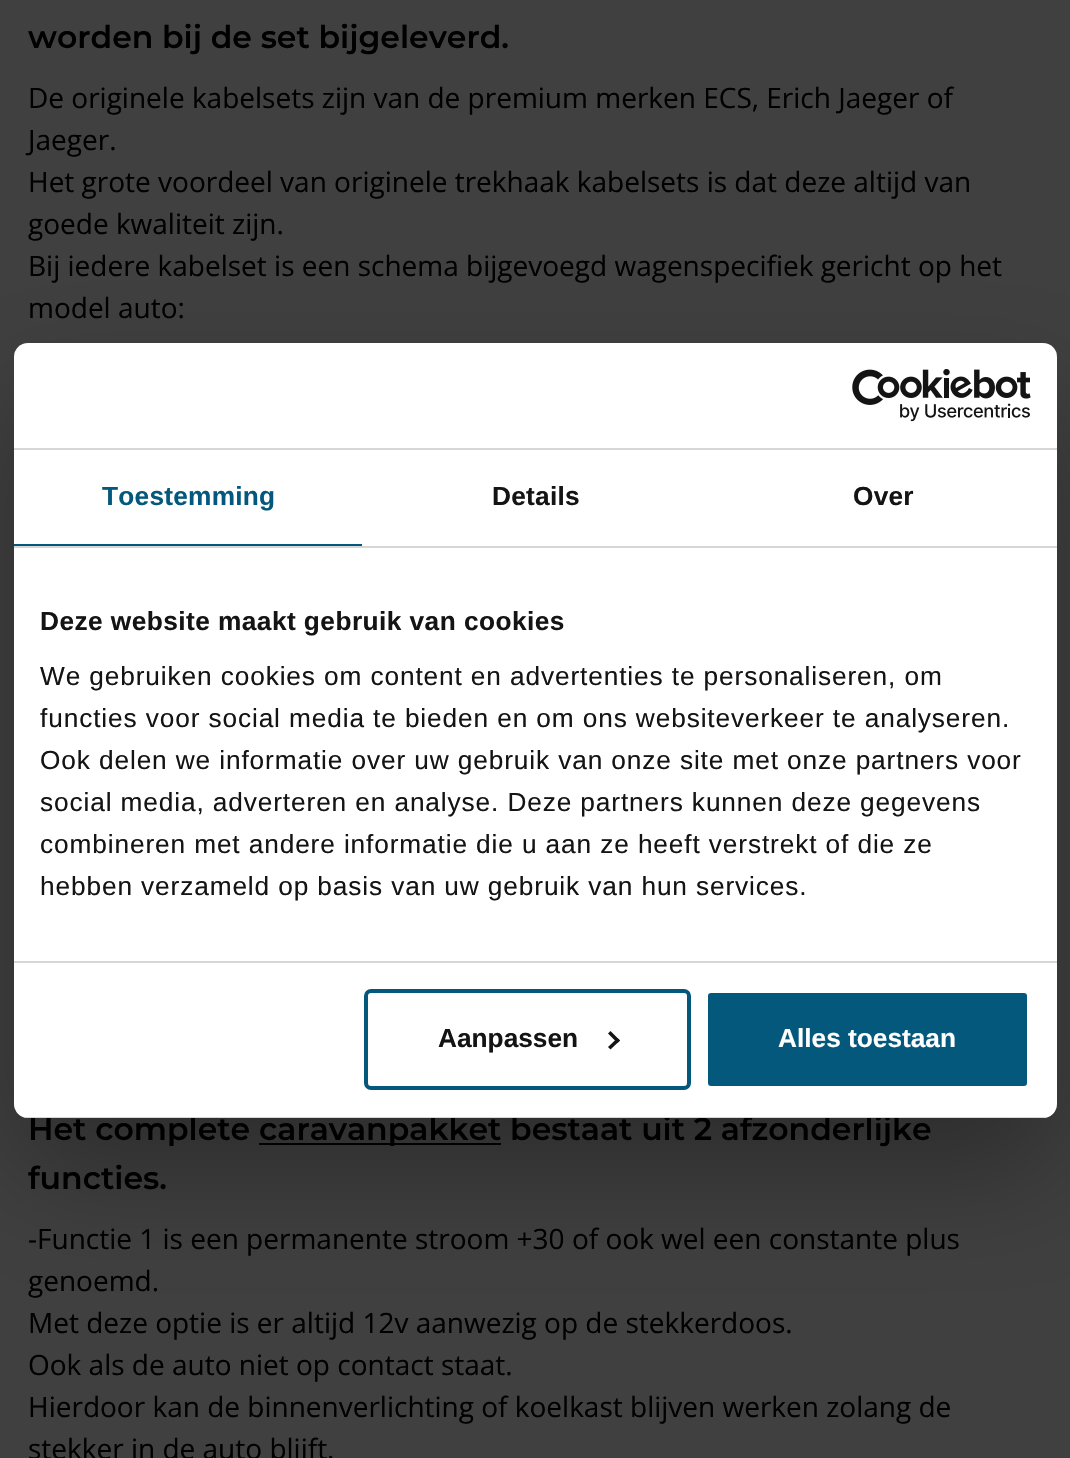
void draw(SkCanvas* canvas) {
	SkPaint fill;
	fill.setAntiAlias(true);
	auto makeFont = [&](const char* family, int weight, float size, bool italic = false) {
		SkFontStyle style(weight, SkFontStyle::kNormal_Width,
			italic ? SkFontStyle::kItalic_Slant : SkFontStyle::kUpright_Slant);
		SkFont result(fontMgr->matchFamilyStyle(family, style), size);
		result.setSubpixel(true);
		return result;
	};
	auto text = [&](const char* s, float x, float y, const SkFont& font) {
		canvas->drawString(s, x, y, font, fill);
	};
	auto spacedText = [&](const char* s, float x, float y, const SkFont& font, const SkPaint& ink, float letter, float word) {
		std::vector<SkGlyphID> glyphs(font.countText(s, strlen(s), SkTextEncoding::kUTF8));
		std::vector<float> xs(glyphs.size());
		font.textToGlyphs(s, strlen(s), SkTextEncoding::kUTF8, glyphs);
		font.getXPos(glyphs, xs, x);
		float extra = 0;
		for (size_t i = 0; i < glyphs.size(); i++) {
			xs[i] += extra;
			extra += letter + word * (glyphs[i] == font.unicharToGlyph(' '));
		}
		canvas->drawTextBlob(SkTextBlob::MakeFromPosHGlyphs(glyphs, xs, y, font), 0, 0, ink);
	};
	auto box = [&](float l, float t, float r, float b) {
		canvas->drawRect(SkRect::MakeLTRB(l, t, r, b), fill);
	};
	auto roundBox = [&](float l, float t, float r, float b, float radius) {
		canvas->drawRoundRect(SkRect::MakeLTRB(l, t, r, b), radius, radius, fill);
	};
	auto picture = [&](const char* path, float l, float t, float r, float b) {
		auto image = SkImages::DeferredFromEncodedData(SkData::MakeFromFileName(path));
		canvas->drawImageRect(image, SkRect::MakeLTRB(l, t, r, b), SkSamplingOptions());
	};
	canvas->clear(0xFF404040);
	fill.setColor(0xFF000000);
	box(259, 1143, 501, 1145);
	fill.setColor(0x4D000000);
	fill.setMaskFilter(SkMaskFilter::MakeBlur(kNormal_SkBlurStyle, 59.5f));
	canvas->drawRoundRect(SkRect::MakeLTRB(14, 399, 1057, 1174), 14, 14, fill);
	fill.setMaskFilter(nullptr);
	auto font1 = makeFont("Montserrat", 600, 31.5f);
	fill.setColor(0xFF000000);
	text("worden bij de set bijgeleverd.", 28, 48, font1);
	auto font2 = makeFont("Open Sans", 400, 28);
	text("De originele kabelsets zijn van de premium merken ECS, Erich Jaeger of", 28, 108, font2);
	text("Jaeger.", 28, 150, font2);
	text("Het grote voordeel van originele trekhaak kabelsets is dat deze altijd van", 28, 192, font2);
	text("goede kwaliteit zijn.", 28, 234, font2);
	text("Bij iedere kabelset is een schema bijgevoegd wagenspecifiek gericht op het", 28, 276, font2);
	text("model auto:", 28, 318, font2);
	text("Het complete", 28, 1140, font1);
	text("caravanpakket bestaat uit 2 afzonderlijke", 259, 1140, font1);
	text("functies.", 28, 1189, font1);
	text("-Functie 1 is een permanente stroom +30 of ook wel een constante plus", 28, 1249, font2);
	text("genoemd.", 28, 1291, font2);
	text("Met deze optie is er altijd 12v aanwezig op de stekkerdoos.", 28, 1333, font2);
	text("Ook als de auto niet op contact staat.", 28, 1375, font2);
	text("Hierdoor kan de binnenverlichting of koelkast blijven werken zolang de", 28, 1417, font2);
	text("stekker in de auto blijft.", 28, 1459, font2);
	fill.setColor(0xFFFFFFFF);
	roundBox(14, 343, 1057, 1118, 14);
	fill.setColor(0xFFD6D6D6);
	box(14, 448, 1057, 450);
	picture("image0.png", 852, 369, 1031, 422);
	box(14, 546, 1057, 548);
	fill.setColor(0xFF04587C);
	box(14, 544, 362, 546);
	auto font3 = makeFont("Liberation Sans", 700, 26.25f);
	spacedText("Toestemming", 102, 505, font3, fill, 0.25f, 0);
	fill.setColor(0xFF141414);
	spacedText("Details", 492, 505, font3, fill, 0.25f, 0);
	spacedText("Over", 853, 505, font3, fill, 0.25f, 0);
	fill.setColor(0xFFD6D6D6);
	box(14, 961, 1057, 963);
	fill.setColor(0xFF141414);
	spacedText("Deze website maakt gebruik van cookies", 40, 630, font3, fill, 0.45f, 0);
	auto font4 = makeFont("Liberation Sans", 400, 26.25f);
	spacedText("We gebruiken cookies om content en advertenties te personaliseren, om", 40, 685, font4, fill, 0.88f, 0);
	spacedText("functies voor social media te bieden en om ons websiteverkeer te analyseren.", 40, 727, font4, fill, 0.88f, 0);
	spacedText("Ook delen we informatie over uw gebruik van onze site met onze partners voor", 40, 769, font4, fill, 0.88f, 0);
	spacedText("social media, adverteren en analyse. Deze partners kunnen deze gegevens", 40, 811, font4, fill, 0.88f, 0);
	spacedText("combineren met andere informatie die u aan ze heeft verstrekt of die ze", 40, 853, font4, fill, 0.88f, 0);
	spacedText("hebben verzameld op basis van uw gebruik van hun services.", 40, 895, font4, fill, 0.88f, 0);
	canvas->save();
	canvas->clipPath(SkPathBuilder().moveTo(28, 343).lineTo(1043, 343).cubicTo(1050.5f, 343, 1057, 349.5f, 1057, 357).lineTo(1057, 1104).cubicTo(1057, 1111.5f, 1050.5f, 1118, 1043, 1118).lineTo(28, 1118).cubicTo(20.5f, 1118, 14, 1111.5f, 14, 1104).lineTo(14, 357).cubicTo(14, 349.5f, 20.5f, 343, 28, 343).close().detach(), true);
	fill.setColor(0xFFD6D6D6);
	box(23, 1117, 1048, 1118);
	canvas->restore();
	fill.setStyle(SkPaint::kStroke_Style);
	fill.setStrokeWidth(4);
	fill.setColor(0xFF04587C);
	canvas->drawRoundRect(SkRect::MakeLTRB(366, 991, 689, 1088), 5, 5, fill);
	fill.setStyle(SkPaint::kFill_Style);
	fill.setColor(0xFF141414);
	text("Aanpassen", 438, 1047, font3);
	canvas->drawPath(SkPathBuilder().moveTo(610.5f, 1031).lineTo(620, 1040.5f).lineTo(617.5f, 1043).lineTo(608, 1033.5f).close().detach(), fill);
	canvas->drawPath(SkPathBuilder().moveTo(617.5f, 1038).lineTo(620, 1040.5f).lineTo(610.5f, 1049.5f).lineTo(608, 1047).close().detach(), fill);
	fill.setColor(0xFF04587C);
	canvas->drawRoundRect(SkRect::MakeLTRB(706, 991, 1029, 1088), 5, 5, fill);
	fill.setStyle(SkPaint::kStroke_Style);
	fill.setColor(0xFFFFFFFF);
	canvas->drawRoundRect(SkRect::MakeLTRB(706, 991, 1029, 1088), 5, 5, fill);
	fill.setStyle(SkPaint::kFill_Style);
	text("Alles toestaan", 778, 1047, font3);
}
